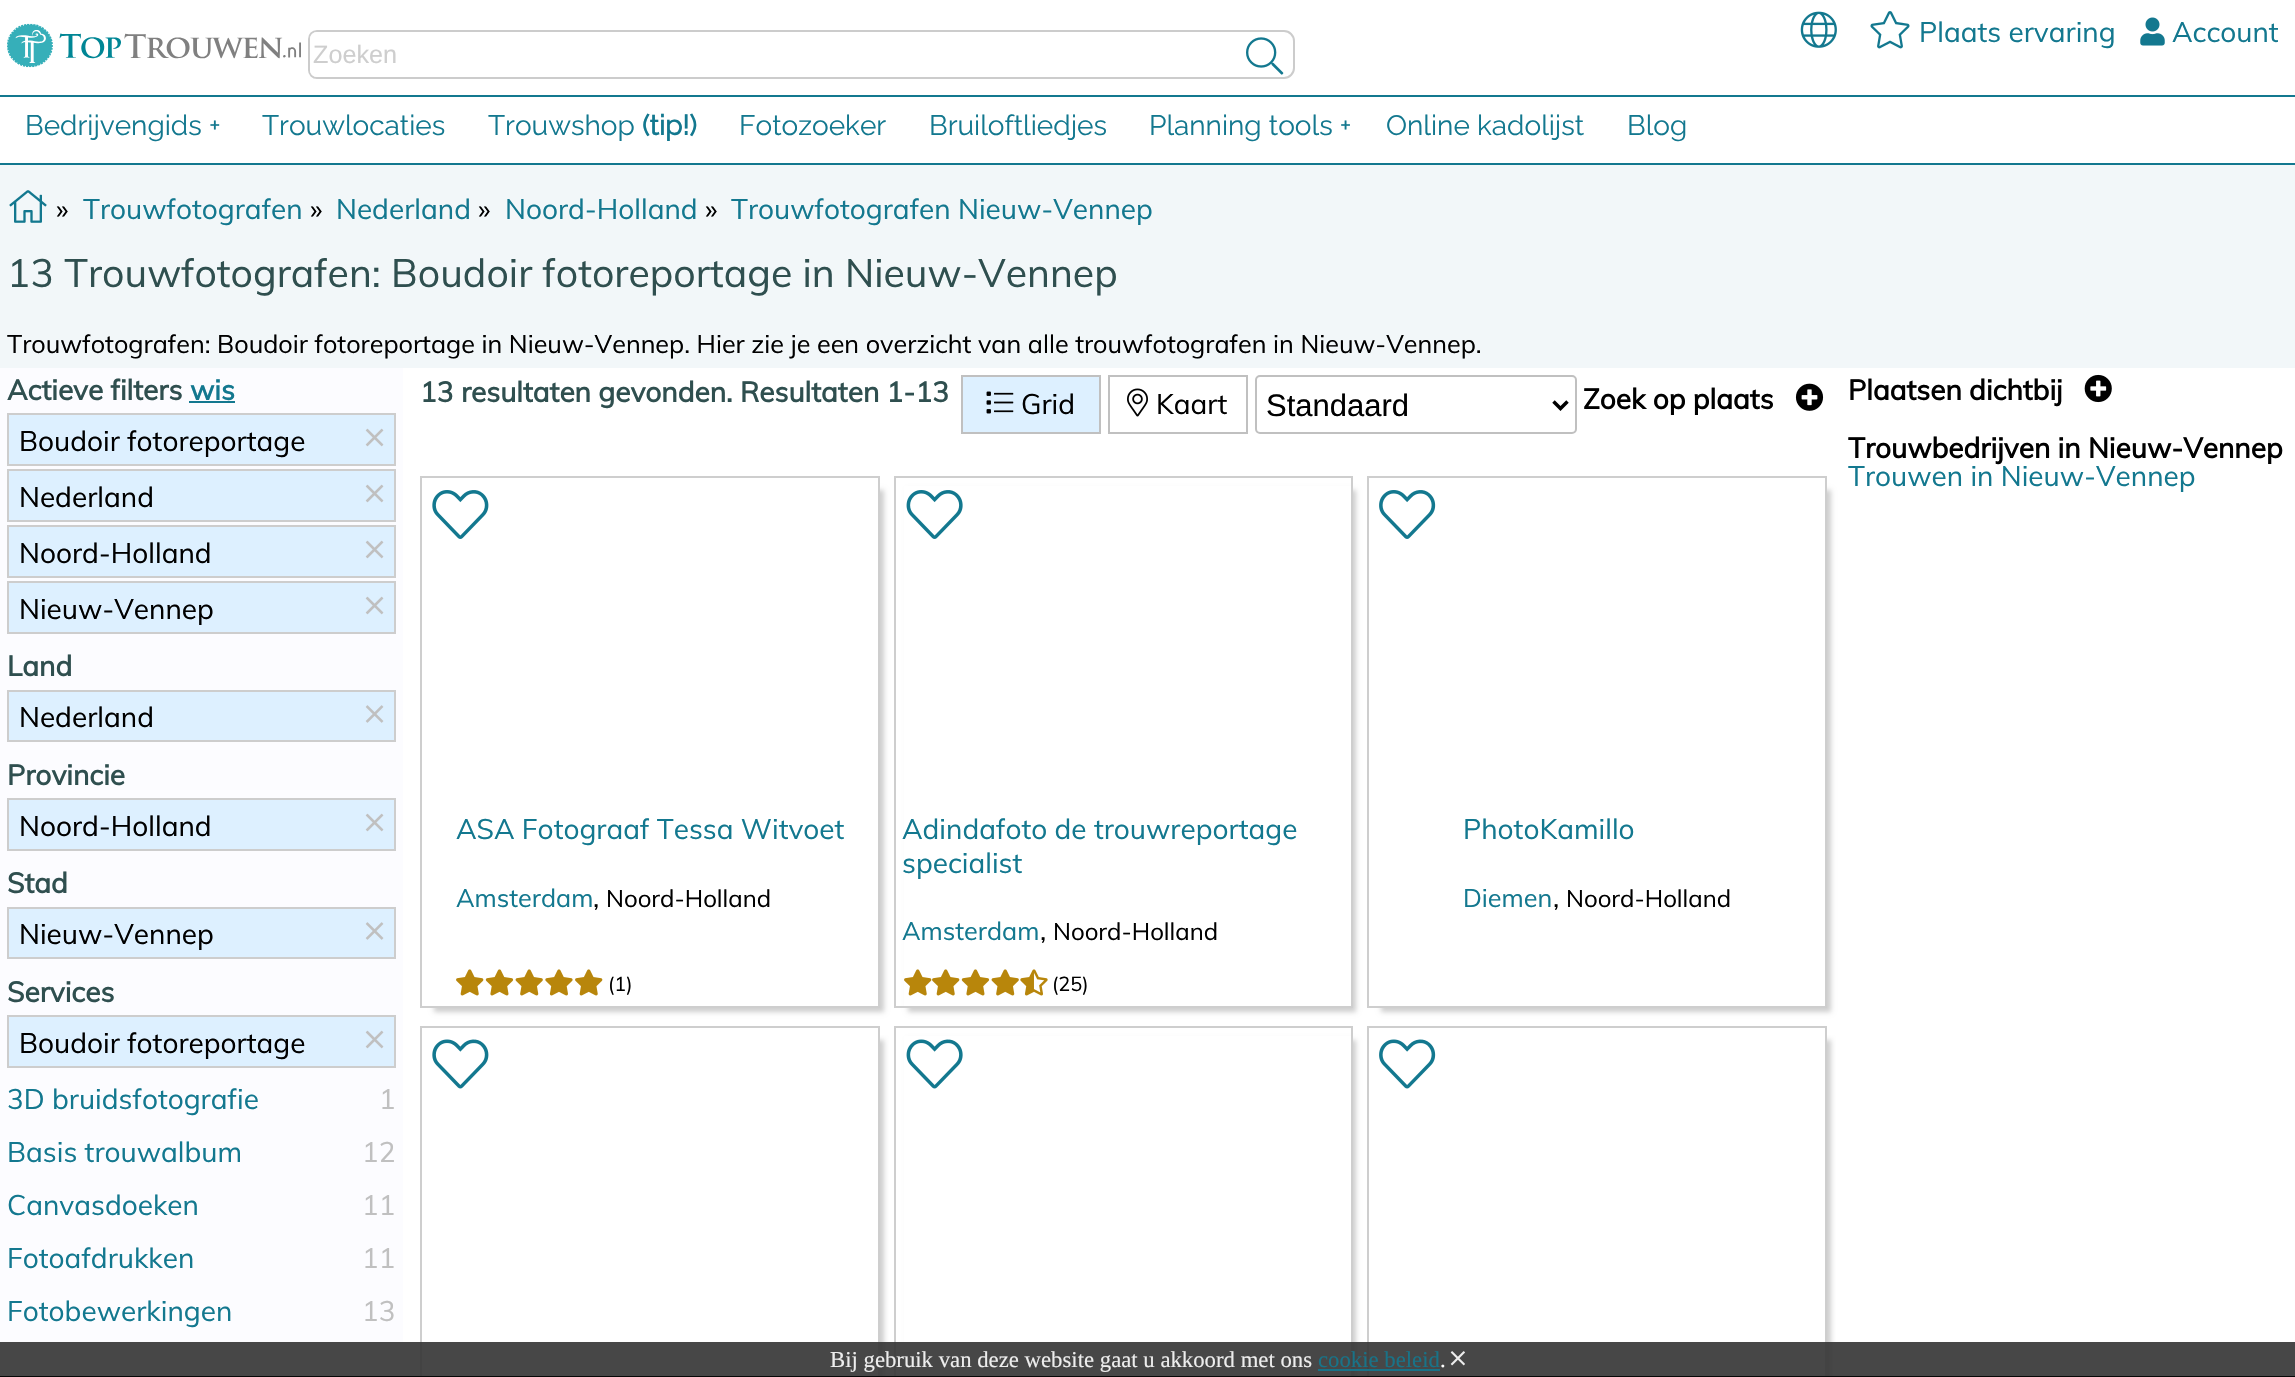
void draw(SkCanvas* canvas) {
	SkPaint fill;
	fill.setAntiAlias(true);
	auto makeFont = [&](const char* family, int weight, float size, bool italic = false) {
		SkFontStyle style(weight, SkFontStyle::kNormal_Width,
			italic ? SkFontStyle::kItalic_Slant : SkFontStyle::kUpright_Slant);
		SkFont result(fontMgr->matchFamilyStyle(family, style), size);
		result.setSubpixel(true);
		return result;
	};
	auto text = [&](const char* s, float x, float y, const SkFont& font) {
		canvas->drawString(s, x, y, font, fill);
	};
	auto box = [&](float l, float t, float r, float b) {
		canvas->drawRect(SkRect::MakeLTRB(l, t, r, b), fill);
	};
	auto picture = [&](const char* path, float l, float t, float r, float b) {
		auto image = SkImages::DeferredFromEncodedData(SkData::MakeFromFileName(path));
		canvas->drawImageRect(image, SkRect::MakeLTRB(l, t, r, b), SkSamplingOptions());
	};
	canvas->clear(0xFFFFFFFF);
	picture("image0.png", 7, 23, 301, 68);
	fill.setStyle(SkPaint::kStroke_Style);
	fill.setStrokeWidth(2);
	fill.setColor(0xFFCCCCCC);
	canvas->drawPath(SkPathBuilder().moveTo(317, 31).lineTo(1284, 31).cubicTo(1289.5f, 31, 1294, 35.5f, 1294, 41).lineTo(1294, 68).cubicTo(1294, 73.5f, 1289.5f, 78, 1284, 78).lineTo(317, 78).cubicTo(312.5f, 78, 309, 74.5f, 309, 70).lineTo(309, 39).cubicTo(309, 34.5f, 312.5f, 31, 317, 31).close().detach(), fill);
	fill.setStyle(SkPaint::kFill_Style);
	fill.setColor(0xFFFFFFFF);
	canvas->drawPath(SkPathBuilder().moveTo(317, 32).lineTo(1225, 32).cubicTo(1228, 32, 1230, 34, 1230, 37).lineTo(1230, 72).cubicTo(1230, 75, 1228, 77, 1225, 77).lineTo(317, 77).cubicTo(313, 77, 310, 74, 310, 70).lineTo(310, 39).cubicTo(310, 35, 313, 32, 317, 32).close().detach(), fill);
	picture("image1.png", 1246, 37, 1284, 75);
	picture("image2.png", 1800, 11, 1837, 48);
	picture("image3.png", 1870, 11, 1910, 49);
	picture("image4.png", 2140, 17, 2165, 46);
	fill.setColor(0xFF13788F);
	box(0, 95, 2295, 97);
	box(0, 163, 2295, 165);
	fill.setColor(0xFFF2F7F9);
	box(0, 165, 2295, 368);
	picture("image5.png", 9, 190, 47, 223);
	fill.setColor(0xFFFCFCFF);
	box(0, 368, 403, 1377);
	fill.setColor(0xFF13788F);
	box(189, 401, 235, 403);
	fill.setColor(0xFFDDF0FF);
	canvas->drawRect(SkRect::MakeLTRB(8, 414, 395, 465), fill);
	fill.setStyle(SkPaint::kStroke_Style);
	fill.setColor(0xFFCDCDCD);
	canvas->drawRect(SkRect::MakeLTRB(8, 414, 395, 465), fill);
	picture("image6.png", 365, 428, 384, 447);
	fill.setStyle(SkPaint::kFill_Style);
	fill.setColor(0xFFDDF0FF);
	canvas->drawRect(SkRect::MakeLTRB(8, 470, 395, 521), fill);
	fill.setStyle(SkPaint::kStroke_Style);
	fill.setColor(0xFFCDCDCD);
	canvas->drawRect(SkRect::MakeLTRB(8, 470, 395, 521), fill);
	picture("image6.png", 365, 484, 384, 503);
	fill.setStyle(SkPaint::kFill_Style);
	fill.setColor(0xFFDDF0FF);
	canvas->drawRect(SkRect::MakeLTRB(8, 526, 395, 577), fill);
	fill.setStyle(SkPaint::kStroke_Style);
	fill.setColor(0xFFCDCDCD);
	canvas->drawRect(SkRect::MakeLTRB(8, 526, 395, 577), fill);
	picture("image6.png", 365, 540, 384, 559);
	fill.setStyle(SkPaint::kFill_Style);
	fill.setColor(0xFFDDF0FF);
	canvas->drawRect(SkRect::MakeLTRB(8, 582, 395, 633), fill);
	fill.setStyle(SkPaint::kStroke_Style);
	fill.setColor(0xFFCDCDCD);
	canvas->drawRect(SkRect::MakeLTRB(8, 582, 395, 633), fill);
	picture("image6.png", 365, 596, 384, 615);
	fill.setStyle(SkPaint::kFill_Style);
	fill.setColor(0xFFDDF0FF);
	canvas->drawRect(SkRect::MakeLTRB(8, 691, 395, 741), fill);
	fill.setStyle(SkPaint::kStroke_Style);
	fill.setColor(0xFFCDCDCD);
	canvas->drawRect(SkRect::MakeLTRB(8, 691, 395, 741), fill);
	picture("image7.png", 365, 705, 384, 723);
	fill.setStyle(SkPaint::kFill_Style);
	fill.setColor(0xFFDDF0FF);
	canvas->drawRect(SkRect::MakeLTRB(8, 799, 395, 850), fill);
	fill.setStyle(SkPaint::kStroke_Style);
	fill.setColor(0xFFCDCDCD);
	canvas->drawRect(SkRect::MakeLTRB(8, 799, 395, 850), fill);
	picture("image6.png", 365, 813, 384, 832);
	fill.setStyle(SkPaint::kFill_Style);
	fill.setColor(0xFFDDF0FF);
	canvas->drawRect(SkRect::MakeLTRB(8, 908, 395, 958), fill);
	fill.setStyle(SkPaint::kStroke_Style);
	fill.setColor(0xFFCDCDCD);
	canvas->drawRect(SkRect::MakeLTRB(8, 908, 395, 958), fill);
	picture("image7.png", 365, 922, 384, 940);
	fill.setStyle(SkPaint::kFill_Style);
	fill.setColor(0xFFDDF0FF);
	canvas->drawRect(SkRect::MakeLTRB(8, 1016, 395, 1067), fill);
	fill.setStyle(SkPaint::kStroke_Style);
	fill.setColor(0xFFCDCDCD);
	canvas->drawRect(SkRect::MakeLTRB(8, 1016, 395, 1067), fill);
	picture("image6.png", 365, 1030, 384, 1049);
	fill.setStyle(SkPaint::kFill_Style);
	fill.setColor(0xFFDDF0FF);
	canvas->drawRect(SkRect::MakeLTRB(962, 376, 1100, 433), fill);
	fill.setStyle(SkPaint::kStroke_Style);
	fill.setColor(0xFFC0C0C0);
	canvas->drawRect(SkRect::MakeLTRB(962, 376, 1100, 433), fill);
	picture("image8.png", 986, 391, 1014, 414);
	canvas->drawRect(SkRect::MakeLTRB(1109, 376, 1247, 433), fill);
	picture("image9.png", 1127, 388, 1148, 417);
	canvas->drawRoundRect(SkRect::MakeLTRB(1256, 376, 1576, 433), 4, 4, fill);
	fill.setStrokeWidth(3.5f);
	fill.setColor(0xFF000000);
	canvas->drawPath(SkPathBuilder().moveTo(1553.5f, 401.5f).lineTo(1560.5f, 408.5f).lineTo(1567.5f, 401.5f).detach(), fill);
	picture("image10.png", 1795, 383, 1824, 411);
	canvas->save();
	canvas->clipPath(SkPathBuilder(SkPathFillType::kEvenOdd).moveTo(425, 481).lineTo(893, 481).lineTo(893, 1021).lineTo(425, 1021).close().moveTo(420, 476).lineTo(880, 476).lineTo(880, 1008).lineTo(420, 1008).close().detach(), true);
	fill.setStyle(SkPaint::kFill_Style);
	fill.setColor(0xFFCECECE);
	fill.setMaskFilter(SkMaskFilter::MakeBlur(kNormal_SkBlurStyle, 2.5f));
	canvas->drawRect(SkRect::MakeLTRB(434, 490, 884, 1012), fill);
	fill.setMaskFilter(nullptr);
	canvas->restore();
	fill.setStyle(SkPaint::kStroke_Style);
	fill.setStrokeWidth(2);
	canvas->drawRect(SkRect::MakeLTRB(421, 477, 879, 1007), fill);
	picture("image11.png", 432, 490, 489, 539);
	picture("image12.png", 456, 969, 484, 996);
	picture("image13.png", 485, 969, 514, 996);
	picture("image14.png", 515, 969, 543, 996);
	picture("image15.png", 545, 969, 573, 996);
	picture("image12.png", 575, 969, 603, 996);
	fill.setStyle(SkPaint::kFill_Style);
	fill.setMaskFilter(SkMaskFilter::MakeBlur(kNormal_SkBlurStyle, 2.5f));
	canvas->drawRect(SkRect::MakeLTRB(908, 490, 1356, 1012), fill);
	fill.setMaskFilter(nullptr);
	fill.setColor(0xFFFFFFFF);
	box(904, 486, 1351, 1006);
	fill.setStyle(SkPaint::kStroke_Style);
	fill.setColor(0xFFCECECE);
	canvas->drawRect(SkRect::MakeLTRB(895, 477, 1352, 1007), fill);
	picture("image16.png", 906, 490, 963, 539);
	picture("image12.png", 904, 969, 932, 996);
	picture("image12.png", 932, 969, 960, 996);
	picture("image13.png", 961, 969, 990, 996);
	picture("image14.png", 991, 969, 1019, 996);
	picture("image17.png", 1020, 969, 1048, 996);
	canvas->save();
	canvas->clipPath(SkPathBuilder(SkPathFillType::kEvenOdd).moveTo(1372, 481).lineTo(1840, 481).lineTo(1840, 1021).lineTo(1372, 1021).close().moveTo(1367, 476).lineTo(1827, 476).lineTo(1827, 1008).lineTo(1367, 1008).close().detach(), true);
	fill.setStyle(SkPaint::kFill_Style);
	fill.setMaskFilter(SkMaskFilter::MakeBlur(kNormal_SkBlurStyle, 2.5f));
	canvas->drawRect(SkRect::MakeLTRB(1381, 490, 1831, 1012), fill);
	fill.setMaskFilter(nullptr);
	canvas->restore();
	fill.setStyle(SkPaint::kStroke_Style);
	canvas->drawRect(SkRect::MakeLTRB(1368, 477, 1826, 1007), fill);
	picture("image18.png", 1379, 490, 1436, 539);
	canvas->save();
	canvas->clipRect(SkRect::MakeLTRB(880, 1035, 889, 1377));
	fill.setStyle(SkPaint::kFill_Style);
	fill.setMaskFilter(SkMaskFilter::MakeBlur(kNormal_SkBlurStyle, 2.5f));
	canvas->drawRect(SkRect::MakeLTRB(434, 1040, 884, 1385), fill);
	fill.setMaskFilter(nullptr);
	canvas->restore();
	fill.setStyle(SkPaint::kStroke_Style);
	canvas->drawRect(SkRect::MakeLTRB(421, 1027, 879, 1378), fill);
	picture("image19.png", 432, 1039, 489, 1089);
	fill.setStyle(SkPaint::kFill_Style);
	fill.setMaskFilter(SkMaskFilter::MakeBlur(kNormal_SkBlurStyle, 2.5f));
	canvas->drawRect(SkRect::MakeLTRB(908, 1040, 1356, 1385), fill);
	fill.setMaskFilter(nullptr);
	fill.setColor(0xFFFFFFFF);
	box(904, 1036, 1351, 1377);
	fill.setStyle(SkPaint::kStroke_Style);
	fill.setColor(0xFFCECECE);
	canvas->drawRect(SkRect::MakeLTRB(895, 1027, 1352, 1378), fill);
	picture("image20.png", 906, 1039, 963, 1089);
	canvas->save();
	canvas->clipRect(SkRect::MakeLTRB(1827, 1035, 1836, 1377));
	fill.setStyle(SkPaint::kFill_Style);
	fill.setMaskFilter(SkMaskFilter::MakeBlur(kNormal_SkBlurStyle, 2.5f));
	canvas->drawRect(SkRect::MakeLTRB(1381, 1040, 1831, 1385), fill);
	fill.setMaskFilter(nullptr);
	canvas->restore();
	fill.setStyle(SkPaint::kStroke_Style);
	canvas->drawRect(SkRect::MakeLTRB(1368, 1027, 1826, 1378), fill);
	picture("image21.png", 1379, 1039, 1436, 1089);
	picture("image22.png", 2084, 374, 2112, 403);
	fill.setStyle(SkPaint::kFill_Style);
	fill.setColor(0xE6333333);
	box(0, 1342, 2295, 1377);
	fill.setColor(0xE6000000);
	box(0, 1376, 2295, 1377);
	fill.setColor(0xE613788F);
	box(1318, 1369, 1440, 1371);
	picture("image23.png", 1450, 1351, 1465, 1366);
	auto font1 = makeFont("Liberation Sans", 400, 25.2f);
	fill.setColor(0xFFCECECE);
	text("Zoeken", 313, 63, font1);
	auto font2 = makeFont("Muli", 400, 28);
	fill.setColor(0xFF13788F);
	text("Plaats ervaring", 1919, 42, font2);
	text("Account", 2172, 42, font2);
	auto font3 = makeFont("Raleway", 100, 28);
	text("Bedrijvengids +", 25, 135, font3);
	text("Trouwlocaties", 262, 135, font3);
	text("Trouwshop", 488, 135, font3);
	auto font4 = makeFont("Raleway", 700, 28);
	text("(tip!)", 642, 135, font4);
	text("Fotozoeker", 739, 135, font3);
	text("Bruiloftliedjes", 929, 135, font3);
	text("Planning tools +", 1149, 135, font3);
	text("Online kadolijst", 1386, 135, font3);
	text("Blog", 1627, 135, font3);
	fill.setColor(0xFF000000);
	text("»", 56, 219, font2);
	fill.setColor(0xFF13788F);
	text("Trouwfotografen", 83, 219, font2);
	fill.setColor(0xFF000000);
	text("»", 310, 219, font2);
	fill.setColor(0xFF13788F);
	text("Nederland", 336, 219, font2);
	fill.setColor(0xFF000000);
	text("»", 478, 219, font2);
	fill.setColor(0xFF13788F);
	text("Noord-Holland", 505, 219, font2);
	fill.setColor(0xFF000000);
	text("»", 705, 219, font2);
	fill.setColor(0xFF13788F);
	text("Trouwfotografen Nieuw-Vennep", 731, 219, font2);
	auto font5 = makeFont("Muli", 400, 39.2f);
	fill.setColor(0xFF2F4F4F);
	text("13 Trouwfotografen: Boudoir fotoreportage in Nieuw-Vennep", 7, 287, font5);
	auto font6 = makeFont("Muli", 400, 25.2f);
	fill.setColor(0xFF000000);
	text("Trouwfotografen: Boudoir fotoreportage in Nieuw-Vennep. Hier zie je een overzicht van alle trouwfotografen in Nieuw-Vennep.", 7, 353, font6);
	auto font7 = makeFont("Muli", 700, 28);
	fill.setColor(0xFF2F4F4F);
	text("Actieve filters", 7, 400, font7);
	fill.setColor(0xFF13788F);
	text("wis", 190, 400, font7);
	fill.setColor(0xFF000000);
	text("Boudoir fotoreportage", 19, 451, font2);
	text("Nederland", 19, 507, font2);
	text("Noord-Holland", 19, 563, font2);
	text("Nieuw-Vennep", 19, 619, font2);
	fill.setColor(0xFF2F4F4F);
	text("Land", 7, 676, font7);
	fill.setColor(0xFF000000);
	text("Nederland", 19, 727, font2);
	fill.setColor(0xFF2F4F4F);
	text("Provincie", 7, 785, font7);
	fill.setColor(0xFF000000);
	text("Noord-Holland", 19, 836, font2);
	fill.setColor(0xFF2F4F4F);
	text("Stad", 7, 893, font7);
	fill.setColor(0xFF000000);
	text("Nieuw-Vennep", 19, 944, font2);
	fill.setColor(0xFF2F4F4F);
	text("Services", 7, 1002, font7);
	fill.setColor(0xFF000000);
	text("Boudoir fotoreportage", 19, 1053, font2);
	fill.setColor(0xFF13788F);
	text("3D bruidsfotografie", 7, 1109, font2);
	fill.setColor(0xFFC0C0C0);
	text("1", 379, 1109, font2);
	fill.setColor(0xFF13788F);
	text("Basis trouwalbum", 7, 1162, font2);
	fill.setColor(0xFFC0C0C0);
	text("12", 362, 1162, font2);
	fill.setColor(0xFF13788F);
	text("Canvasdoeken", 7, 1215, font2);
	fill.setColor(0xFFC0C0C0);
	text("11", 362, 1215, font2);
	fill.setColor(0xFF13788F);
	text("Fotoafdrukken", 7, 1268, font2);
	fill.setColor(0xFFC0C0C0);
	text("11", 362, 1268, font2);
	fill.setColor(0xFF13788F);
	text("Fotobewerkingen", 7, 1321, font2);
	fill.setColor(0xFFC0C0C0);
	text("13", 362, 1321, font2);
	fill.setColor(0xFF2F4F4F);
	text("13 resultaten gevonden. Resultaten 1-13", 420, 402, font7);
	fill.setColor(0xFF000000);
	text("Grid", 1021, 414, font2);
	text("Kaart", 1156, 414, font2);
	auto font8 = makeFont("Liberation Sans", 400, 31);
	text("Standaard", 1266, 416, font8);
	text("Zoek op plaats", 1583, 409, font7);
	fill.setColor(0xFF13788F);
	text("ASA Fotograaf Tessa Witvoet", 456, 839, font2);
	auto font9 = makeFont("Muli", 400, 25.25f);
	text("Amsterdam", 456, 907, font9);
	auto font10 = makeFont("Muli", 400, 27);
	fill.setColor(0xFF000000);
	text(",", 593, 907, font10);
	auto font11 = makeFont("Muli", 400, 24);
	text("Noord-Holland", 606, 907, font11);
	auto font12 = makeFont("Muli", 400, 20);
	text("(1)", 608, 991, font12);
	fill.setColor(0xFF13788F);
	text("Adindafoto de trouwreportage", 902, 839, font2);
	text("specialist", 902, 873, font2);
	text("Amsterdam", 902, 940, font9);
	fill.setColor(0xFF000000);
	text(",", 1040, 940, font10);
	text("Noord-Holland", 1053, 940, font11);
	text("(25)", 1052, 991, font12);
	fill.setColor(0xFF13788F);
	text("PhotoKamillo", 1463, 839, font2);
	text("Diemen", 1463, 907, font9);
	fill.setColor(0xFF000000);
	text(",", 1553, 907, font10);
	text("Noord-Holland", 1566, 907, font11);
	text("Plaatsen dichtbij", 1848, 400, font7);
	text("Trouwbedrijven in Nieuw-Vennep", 1848, 458, font7);
	fill.setColor(0xFF13788F);
	text("Trouwen in Nieuw-Vennep", 1848, 486, font2);
	auto font13 = makeFont("Liberation Serif", 400, 22.75f);
	fill.setColor(0xFFEDEDED);
	text("Bij gebruik van deze website gaat u akkoord met ons", 830, 1367, font13);
	fill.setColor(0xFF187388);
	text("cookie beleid", 1318, 1367, font13);
	fill.setColor(0xFFFFFFFF);
	text(".", 1440, 1367, font13);
}
